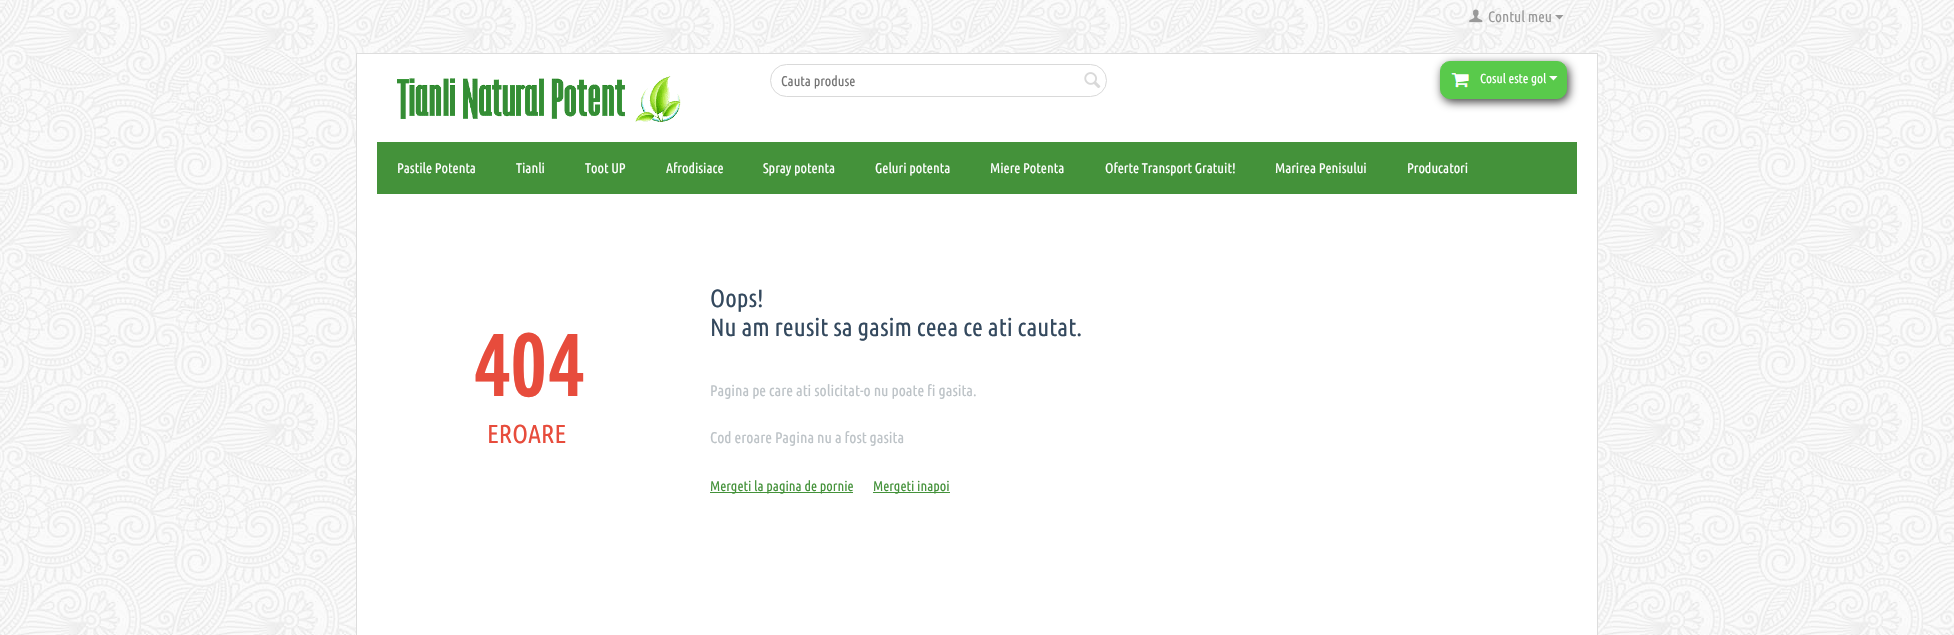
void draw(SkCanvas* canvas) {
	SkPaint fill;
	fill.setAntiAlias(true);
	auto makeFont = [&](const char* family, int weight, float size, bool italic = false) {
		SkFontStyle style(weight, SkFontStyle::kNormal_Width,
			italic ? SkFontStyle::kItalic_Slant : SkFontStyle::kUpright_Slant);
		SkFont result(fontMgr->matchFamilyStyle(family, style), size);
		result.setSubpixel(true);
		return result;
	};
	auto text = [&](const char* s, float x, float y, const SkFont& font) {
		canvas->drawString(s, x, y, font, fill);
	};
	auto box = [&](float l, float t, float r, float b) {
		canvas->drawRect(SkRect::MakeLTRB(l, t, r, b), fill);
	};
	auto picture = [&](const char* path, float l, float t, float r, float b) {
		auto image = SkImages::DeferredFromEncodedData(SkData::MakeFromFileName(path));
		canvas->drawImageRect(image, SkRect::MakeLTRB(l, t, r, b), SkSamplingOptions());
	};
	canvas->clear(0xFFFFFFFF);
	picture("image0.png", 0, 0, 1954, 635);
	picture("image1.png", 1469, 9, 1483, 23);
	fill.setColor(0xFF999999);
	canvas->drawPath(SkPathBuilder().moveTo(1559.5f, 19.5f).lineTo(1555, 15).lineTo(1563.5f, 15).close().detach(), fill);
	fill.setColor(0xFFFFFFFF);
	box(357, 54, 1597, 635);
	fill.setColor(0xFFDDDDDD);
	box(356, 53, 1598, 54);
	box(1597, 53, 1598, 635);
	box(356, 53, 357, 635);
	picture("image2.png", 397, 76, 681, 122);
	fill.setStyle(SkPaint::kStroke_Style);
	fill.setStrokeWidth(1);
	fill.setColor(0xFFD9D9D9);
	canvas->drawRoundRect(SkRect::MakeLTRB(770.5f, 64.5f, 1106.5f, 96.5f), 16, 16, fill);
	picture("image3.png", 1084, 72, 1101, 88);
	fill.setStyle(SkPaint::kFill_Style);
	fill.setColor(0xFF424141);
	fill.setMaskFilter(SkMaskFilter::MakeBlur(kNormal_SkBlurStyle, 5));
	canvas->drawRoundRect(SkRect::MakeLTRB(1442, 64, 1569, 102), 10, 10, fill);
	fill.setMaskFilter(nullptr);
	fill.setColor(0xFF59CA4B);
	canvas->drawRoundRect(SkRect::MakeLTRB(1440.5f, 61.5f, 1566.5f, 98.5f), 9.5f, 9.5f, fill);
	fill.setStyle(SkPaint::kStroke_Style);
	canvas->drawRoundRect(SkRect::MakeLTRB(1440.5f, 61.5f, 1566.5f, 98.5f), 9.5f, 9.5f, fill);
	picture("image4.png", 1451, 73, 1469, 88);
	fill.setStyle(SkPaint::kFill_Style);
	fill.setColor(0xFFFFFFFF);
	canvas->drawPath(SkPathBuilder().moveTo(1553.5f, 80.5f).lineTo(1549, 76).lineTo(1557.5f, 76).close().detach(), fill);
	fill.setColor(0xFF44923A);
	box(377, 142, 1577, 194);
	box(710, 492, 853, 493);
	box(873, 492, 950, 493);
	auto font1 = makeFont("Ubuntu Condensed", 400, 15);
	fill.setColor(0xFF999999);
	text("Contul meu", 1488, 22, font1);
	auto font2 = makeFont("Ubuntu Condensed", 400, 14);
	fill.setColor(0xFF737373);
	text("Cauta produse", 781, 86, font2);
	auto font3 = makeFont("Ubuntu Condensed", 400, 13);
	fill.setColor(0xFFFFFFFF);
	text("Cosul este gol", 1480, 83, font3);
	text("Pastile Potenta", 397, 173, font2);
	text("Tianli", 516, 173, font2);
	text("Toot UP", 585, 173, font2);
	text("Afrodisiace", 666, 173, font2);
	text("Spray potenta", 763, 173, font2);
	text("Geluri potenta", 875, 173, font2);
	text("Miere Potenta", 990, 173, font2);
	text("Oferte Transport Gratuit!", 1105, 173, font2);
	text("Marirea Penisului", 1275, 173, font2);
	text("Producatori", 1407, 173, font2);
	auto font4 = makeFont("Ubuntu Condensed", 700, 86);
	fill.setColor(0xFFE74C3C);
	text("404", 472, 396, font4);
	auto font5 = makeFont("Ubuntu Condensed", 400, 26);
	text("EROARE", 487, 443, font5);
	auto font6 = makeFont("Ubuntu Condensed", 400, 25);
	fill.setColor(0xFF34495E);
	text("Oops!", 710, 307, font6);
	text("Nu am reusit sa gasim ceea ce ati cautat.", 710, 336, font6);
	auto font7 = makeFont("Ubuntu Condensed", 400, 15.4f);
	fill.setColor(0xFFBDC3C7);
	text("Pagina pe care ati solicitat-o nu poate fi gasita.", 710, 396, font7);
	text("Cod eroare Pagina nu a fost gasita", 710, 443, font7);
	fill.setColor(0xFF44923A);
	text("Mergeti la pagina de pornie", 710, 491, font2);
	text("Mergeti inapoi", 873, 491, font2);
}
